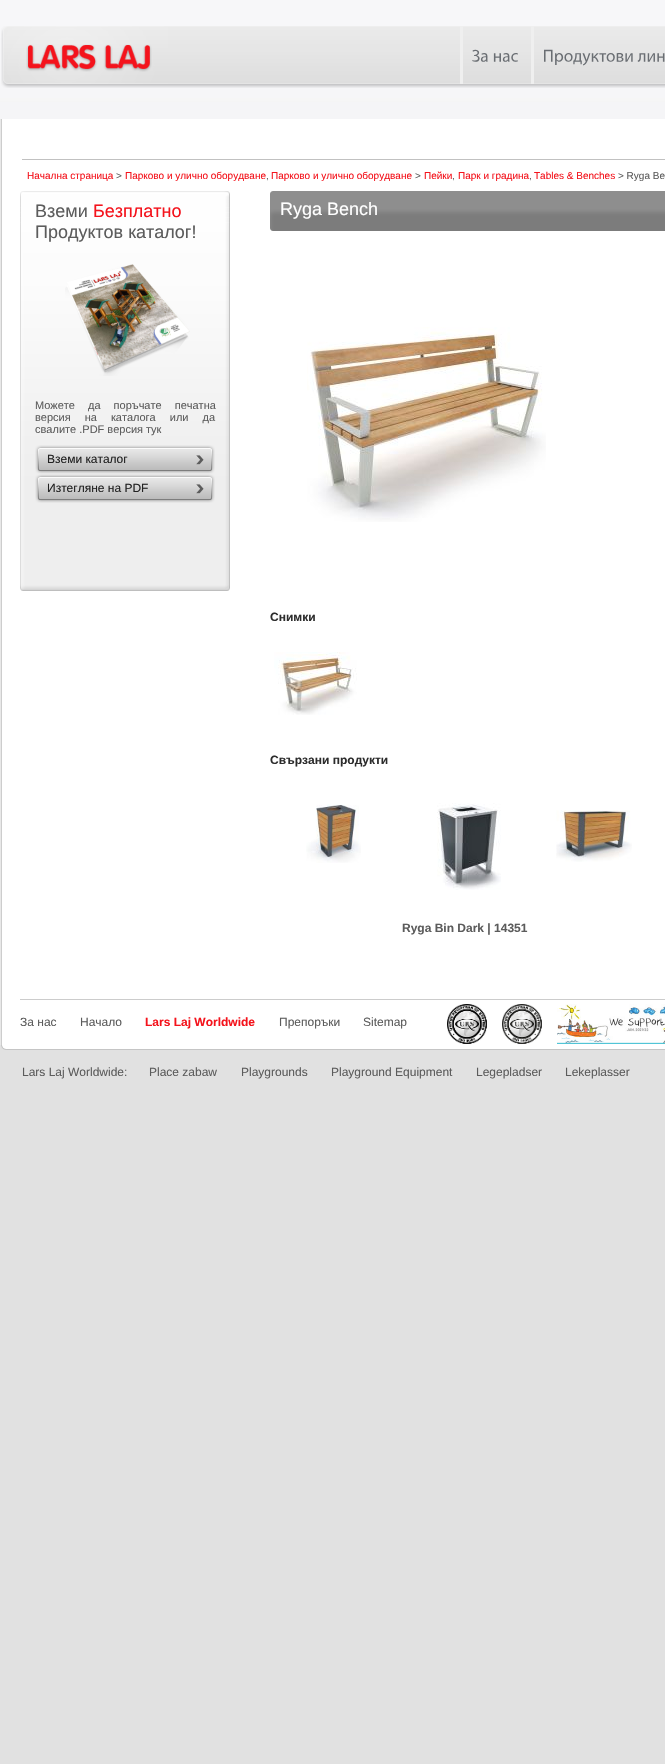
void draw(SkCanvas* canvas) {
	SkPaint fill;
	fill.setAntiAlias(true);
	auto makeFont = [&](const char* family, int weight, float size, bool italic = false) {
		SkFontStyle style(weight, SkFontStyle::kNormal_Width,
			italic ? SkFontStyle::kItalic_Slant : SkFontStyle::kUpright_Slant);
		SkFont result(fontMgr->matchFamilyStyle(family, style), size);
		result.setSubpixel(true);
		return result;
	};
	auto text = [&](const char* s, float x, float y, const SkFont& font) {
		canvas->drawString(s, x, y, font, fill);
	};
	auto spacedText = [&](const char* s, float x, float y, const SkFont& font, const SkPaint& ink, float letter, float word) {
		std::vector<SkGlyphID> glyphs(font.countText(s, strlen(s), SkTextEncoding::kUTF8));
		std::vector<float> xs(glyphs.size());
		font.textToGlyphs(s, strlen(s), SkTextEncoding::kUTF8, glyphs);
		font.getXPos(glyphs, xs, x);
		float extra = 0;
		for (size_t i = 0; i < glyphs.size(); i++) {
			xs[i] += extra;
			extra += letter + word * (glyphs[i] == font.unicharToGlyph(' '));
		}
		canvas->drawTextBlob(SkTextBlob::MakeFromPosHGlyphs(glyphs, xs, y, font), 0, 0, ink);
	};
	auto box = [&](float l, float t, float r, float b) {
		canvas->drawRect(SkRect::MakeLTRB(l, t, r, b), fill);
	};
	auto picture = [&](const char* path, float l, float t, float r, float b) {
		auto image = SkImages::DeferredFromEncodedData(SkData::MakeFromFileName(path));
		canvas->drawImageRect(image, SkRect::MakeLTRB(l, t, r, b), SkSamplingOptions());
	};
	canvas->clear(0xFFE1E1E1);
	picture("image0.png", 0, 0, 665, 119);
	picture("image1.png", 1, 26, 168, 88);
	picture("image2.png", 26, 44, 152, 72);
	picture("image3.png", 168, 26, 665, 88);
	fill.setColor(0xFFEFEFEF);
	box(460, 26, 463, 84);
	picture("image4.png", 472, 49, 488, 62);
	picture("image5.png", 493, 53, 518, 62);
	box(531, 26, 534, 84);
	picture("image6.png", 544, 49, 633, 66);
	picture("image7.png", 637, 53, 665, 62);
	fill.setColor(0xFFFFFFFF);
	box(2, 119, 665, 1045);
	picture("image8.png", 0, 119, 2, 1045);
	fill.setColor(0xFFC1C1C1);
	box(22, 159, 665, 160);
	picture("image9.png", 20, 191, 230, 591);
	picture("image10.png", 65, 264, 190, 376);
	picture("image11.png", 35, 445, 47, 474);
	picture("image12.png", 47, 445, 215, 474);
	picture("image13.png", 35, 474, 47, 503);
	picture("image14.png", 47, 474, 215, 503);
	picture("image15.png", 270, 191, 665, 231);
	picture("image16.png", 307, 327, 546, 522);
	picture("image17.png", 274, 652, 357, 715);
	picture("image18.png", 306, 804, 361, 863);
	picture("image19.png", 437, 803, 501, 890);
	picture("image20.png", 556, 810, 632, 862);
	fill.setColor(0xFFCCCCCC);
	box(20, 999, 665, 1000);
	picture("image21.png", 447, 1004, 487, 1044);
	picture("image22.png", 502, 1004, 542, 1044);
	picture("image23.png", 557, 1004, 665, 1044);
	picture("image24.png", 1, 1045, 665, 1050);
	auto font1 = makeFont("Liberation Sans", 400, 10);
	fill.setColor(0xFFF4131C);
	text("Начална страница", 27, 179, font1);
	fill.setColor(0xFF5C5C5C);
	text(">", 116, 179, font1);
	fill.setColor(0xFFF4131C);
	text("Парково и улично оборудване", 125, 179, font1);
	fill.setColor(0xFF5C5C5C);
	text(",", 266, 179, font1);
	fill.setColor(0xFFF4131C);
	text("Парково и улично оборудване", 271, 179, font1);
	fill.setColor(0xFF5C5C5C);
	text(">", 415, 179, font1);
	fill.setColor(0xFFF4131C);
	text("Пейки", 424, 179, font1);
	fill.setColor(0xFF5C5C5C);
	text(",", 452, 179, font1);
	fill.setColor(0xFFF4131C);
	text("Парк и градина", 458, 179, font1);
	fill.setColor(0xFF5C5C5C);
	text(",", 529, 179, font1);
	fill.setColor(0xFFF4131C);
	text("Tables & Benches", 534, 179, font1);
	fill.setColor(0xFF5C5C5C);
	text("> Ryga Be", 618, 179, font1);
	auto font2 = makeFont("Liberation Sans", 400, 18);
	text("Вземи", 35, 217, font2);
	fill.setColor(0xFFF4131C);
	text("Безплатно", 93, 217, font2);
	fill.setColor(0xFF5C5C5C);
	text("Продуктов каталог!", 35, 238, font2);
	auto font3 = makeFont("Liberation Sans", 400, 11);
	spacedText("Можете да поръчате печатна", 35, 409, font3, fill, 0, 10);
	spacedText("версия на каталога или да", 35, 421, font3, fill, 0, 11);
	text("свалите .PDF версия тук", 35, 433, font3);
	auto font4 = makeFont("Liberation Sans", 400, 12);
	fill.setColor(0xFF222222);
	text("Вземи каталог", 47, 463, font4);
	text("Изтегляне на PDF", 47, 492, font4);
	fill.setColor(0xFFFFFFFF);
	text("Ryga Bench", 280, 215, font2);
	auto font5 = makeFont("Liberation Sans", 700, 12);
	fill.setColor(0xFF2C2C2C);
	text("Снимки", 270, 621, font5);
	text("Свързани продукти", 270, 764, font5);
	fill.setColor(0xFF5C5C5C);
	text("Ryga Bin Dark | 14351", 402, 932, font5);
	text("За нас", 20, 1026, font4);
	text("Начало", 80, 1026, font4);
	fill.setColor(0xFFF4131C);
	text("Lars Laj Worldwide", 145, 1026, font5);
	fill.setColor(0xFF5C5C5C);
	text("Препоръки", 279, 1026, font4);
	text("Sitemap", 363, 1026, font4);
	text("Lars Laj Worldwide:", 22, 1076, font4);
	text("Place zabaw", 149, 1076, font4);
	text("Playgrounds", 241, 1076, font4);
	text("Playground Equipment", 331, 1076, font4);
	text("Legepladser", 476, 1076, font4);
	text("Lekeplasser", 565, 1076, font4);
}
